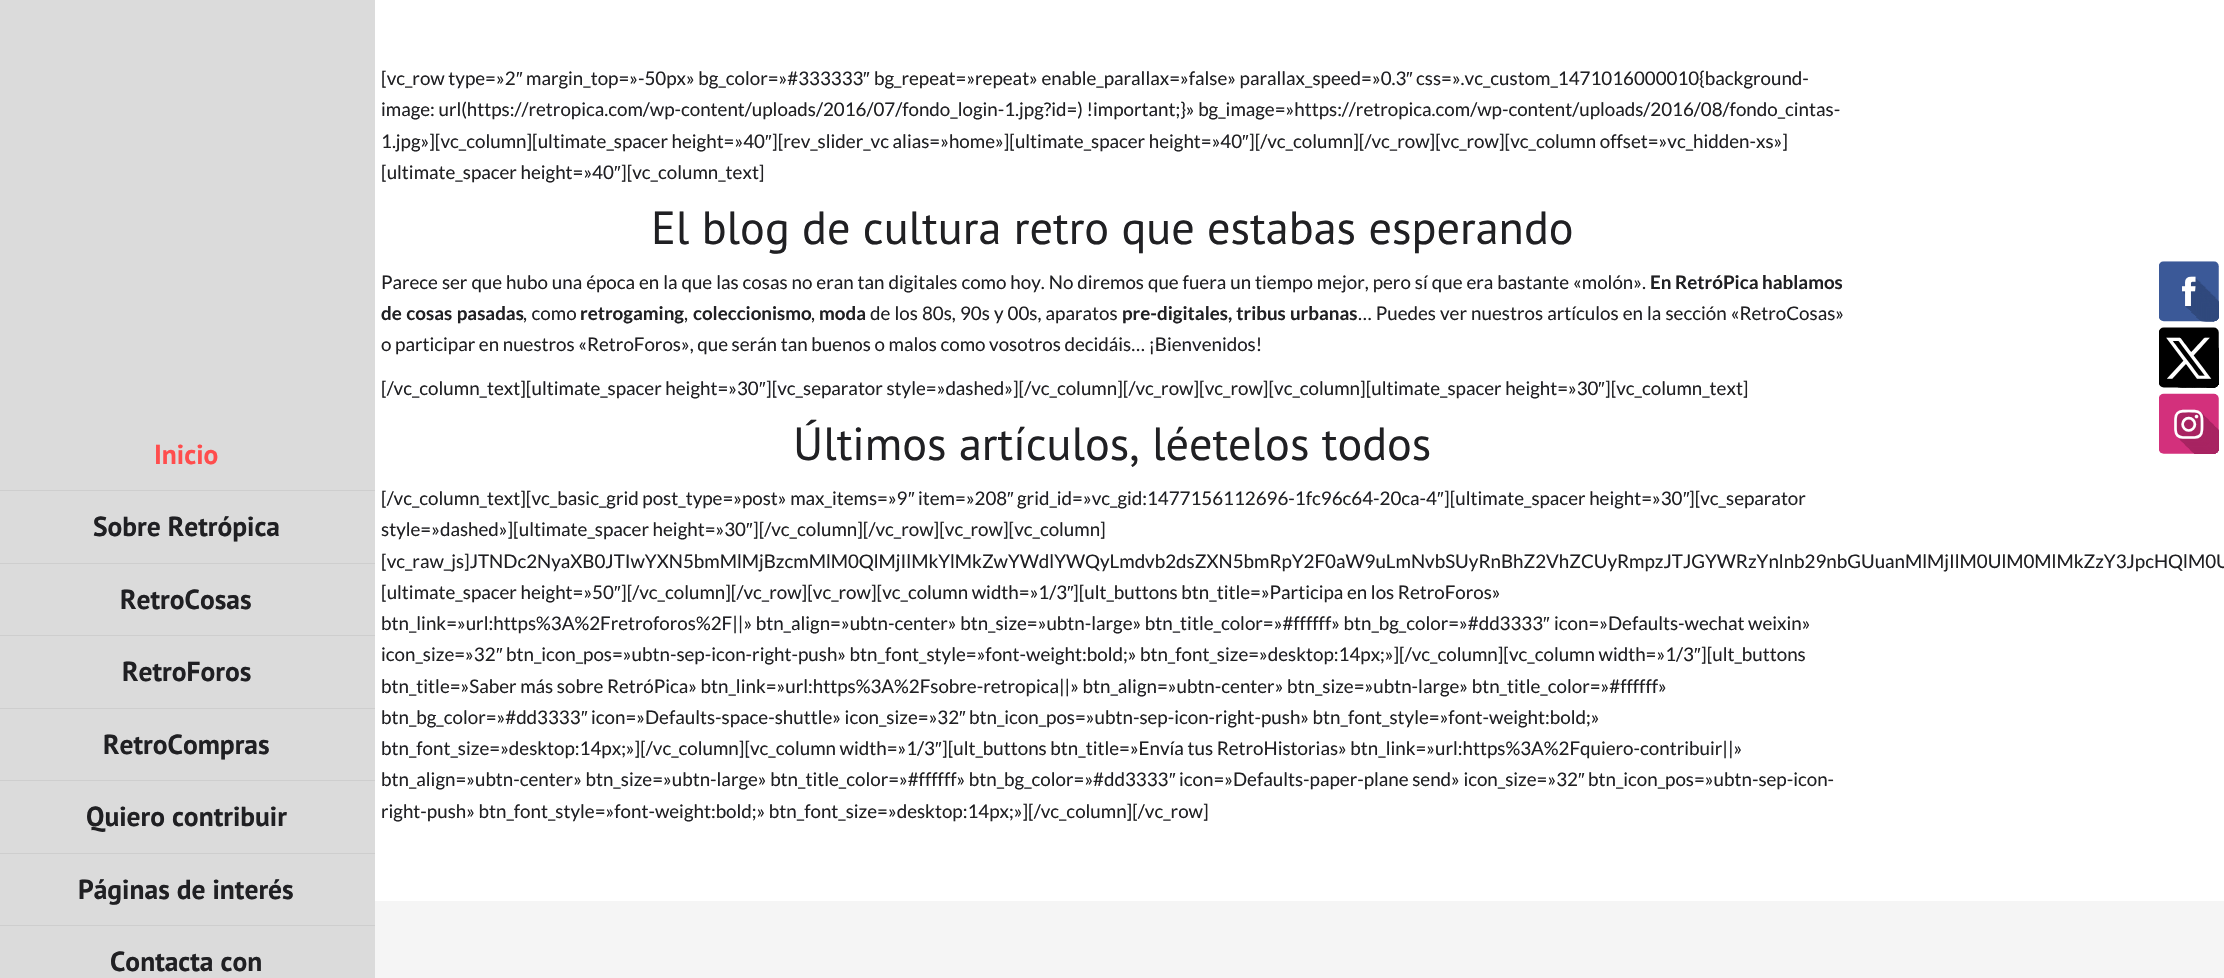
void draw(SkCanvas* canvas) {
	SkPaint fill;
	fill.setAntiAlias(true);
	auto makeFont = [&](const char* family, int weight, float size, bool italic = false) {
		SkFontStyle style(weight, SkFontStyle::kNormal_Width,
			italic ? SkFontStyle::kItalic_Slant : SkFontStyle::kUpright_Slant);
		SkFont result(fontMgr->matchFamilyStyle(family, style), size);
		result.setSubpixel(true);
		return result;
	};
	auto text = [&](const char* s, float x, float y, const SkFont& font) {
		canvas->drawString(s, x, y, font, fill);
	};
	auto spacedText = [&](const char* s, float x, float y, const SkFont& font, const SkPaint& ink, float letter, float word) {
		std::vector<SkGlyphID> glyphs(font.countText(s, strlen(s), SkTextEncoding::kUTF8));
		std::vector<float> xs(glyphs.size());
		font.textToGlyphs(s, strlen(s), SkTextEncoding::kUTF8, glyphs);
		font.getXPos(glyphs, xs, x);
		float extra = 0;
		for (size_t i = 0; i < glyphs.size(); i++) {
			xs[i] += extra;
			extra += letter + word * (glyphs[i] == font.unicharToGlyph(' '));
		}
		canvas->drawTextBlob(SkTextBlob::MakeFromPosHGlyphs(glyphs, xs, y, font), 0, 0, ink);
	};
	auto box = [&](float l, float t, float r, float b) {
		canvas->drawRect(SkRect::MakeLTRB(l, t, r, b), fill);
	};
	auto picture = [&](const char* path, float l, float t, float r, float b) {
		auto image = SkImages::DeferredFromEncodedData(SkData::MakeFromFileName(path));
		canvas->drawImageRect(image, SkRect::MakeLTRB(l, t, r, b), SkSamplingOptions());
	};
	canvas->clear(0xFFFFFFFF);
	fill.setColor(0xFFDBDBDB);
	box(0, 0, 375, 978);
	fill.setColor(0xFFCECECE);
	box(0, 490, 375, 491);
	box(0, 563, 375, 564);
	box(0, 635, 375, 636);
	box(0, 708, 375, 709);
	box(0, 780, 375, 781);
	box(0, 853, 375, 854);
	box(0, 925, 375, 926);
	fill.setColor(0xFFF5F5F5);
	box(375, 901, 2224, 978);
	picture("image0.png", 2159, 261, 2219, 454);
	auto font1 = makeFont("PT Sans", 700, 27.5f);
	fill.setColor(0xFFFF4D4D);
	text("Inicio", 154, 464, font1);
	fill.setColor(0xFF202023);
	text("Sobre Retrópica", 93, 536, font1);
	text("RetroCosas", 120, 609, font1);
	text("RetroForos", 122, 681, font1);
	text("RetroCompras", 103, 754, font1);
	text("Quiero contribuir", 86, 826, font1);
	text("Páginas de interés", 78, 899, font1);
	text("Contacta con", 110, 971, font1);
	auto font2 = makeFont("Lato", 400, 18.75f);
	text("[vc_row type=»2", 381, 85, font2);
	auto font3 = makeFont("Liberation Sans", 400, 18.75f);
	text("″", 516, 85, font3);
	text("margin_top=»-50px» bg_color=»#333333", 526, 85, font2);
	text("″", 863, 85, font3);
	text("bg_repeat=»repeat» enable_parallax=»false» parallax_speed=»0.3", 874, 85, font2);
	text("″", 1406, 85, font3);
	text("css=».vc_custom_1471016000010{background-", 1416, 85, font2);
	text("image: url(https://retropica.com/wp-content/uploads/2016/07/fondo_login-1.jpg?id=) !important;}» bg_image=»https://retropica.com/wp-content/uploads/2016/08/fondo_cintas-", 381, 116, font2);
	text("1.jpg»][vc_column][ultimate_spacer height=»40", 381, 148, font2);
	text("″", 765, 148, font3);
	text("][rev_slider_vc alias=»home»][ultimate_spacer height=»40", 772, 148, font2);
	text("″", 1242, 148, font3);
	text("][/vc_column][/vc_row][vc_row][vc_column offset=»vc_hidden-xs»]", 1249, 148, font2);
	text("[ultimate_spacer height=»40", 381, 179, font2);
	text("″", 614, 179, font3);
	text("][vc_column_text]", 621, 179, font2);
	auto font4 = makeFont("PT Sans", 400, 46.25f);
	text("El blog de cultura retro que estabas esperando", 651, 244, font4);
	spacedText("Parece ser que hubo una época en la que las cosas no eran tan digitales como hoy. No diremos que fuera un tiempo mejor, pero sí que era bastante «molón».", 381, 289, font2, fill, 0, 0.35f);
	auto font5 = makeFont("Lato", 700, 18.75f);
	text("En RetróPica hablamos", 1650, 289, font5);
	spacedText("de cosas pasadas", 381, 320, font5, fill, 0, 1);
	spacedText(", como", 523, 320, font2, fill, 0, 1);
	text("retrogaming", 580, 320, font5);
	text(",", 684, 320, font2);
	text("coleccionismo", 693, 320, font5);
	text(",", 811, 320, font2);
	text("moda", 819, 320, font5);
	spacedText("de los 80s, 90s y 00s, aparatos", 870, 320, font2, fill, 0, 0.5f);
	spacedText("pre-digitales, tribus urbanas", 1122, 320, font5, fill, 0, 0.5f);
	spacedText("… Puedes ver nuestros artículos en la sección «RetroCosas»", 1358, 320, font2, fill, 0, 0.5f);
	text("o participar en nuestros «RetroForos», que serán tan buenos o malos como vosotros decidáis… ¡Bienvenidos!", 381, 351, font2);
	text("[/vc_column_text][ultimate_spacer height=»30", 381, 395, font2);
	text("″", 759, 395, font3);
	text("][vc_separator style=»dashed»][/vc_column][/vc_row][vc_row][vc_column][ultimate_spacer height=»30", 766, 395, font2);
	text("″", 1598, 395, font3);
	text("][vc_column_text]", 1605, 395, font2);
	text("Últimos artículos, léetelos todos", 793, 460, font4);
	text("[/vc_column_text][vc_basic_grid post_type=»post» max_items=»9", 381, 505, font2);
	text("″", 908, 505, font3);
	text("item=»208", 918, 505, font2);
	text("″", 1007, 505, font3);
	text("grid_id=»vc_gid:1477156112696-1fc96c64-20ca-4", 1017, 505, font2);
	text("″", 1437, 505, font3);
	text("][ultimate_spacer height=»30", 1444, 505, font2);
	text("″", 1683, 505, font3);
	text("][vc_separator", 1689, 505, font2);
	text("style=»dashed»][ultimate_spacer height=»30", 381, 536, font2);
	text("″", 746, 536, font3);
	text("][/vc_column][/vc_row][vc_row][vc_column]", 753, 536, font2);
	text("[vc_raw_js]JTNDc2NyaXB0JTIwYXN5bmMlMjBzcmMlM0QlMjIlMkYlMkZwYWdlYWQyLmdvb2dsZXN5bmRpY2F0aW9uLmNvbSUyRnBhZ2VhZCUyRmpzJTJGYWRzYnlnb29nbGUuanMlMjIlM0UlM0MlMkZzY3JpcHQlM0U", 381, 568, font2);
	text("[ultimate_spacer height=»50", 381, 599, font2);
	text("″", 614, 599, font3);
	text("][/vc_column][/vc_row][vc_row][vc_column width=»1/3", 621, 599, font2);
	text("″", 1067, 599, font3);
	text("][ult_buttons btn_title=»Participa en los RetroForos»", 1073, 599, font2);
	text("btn_link=»url:https%3A%2Fretroforos%2F||» btn_align=»ubtn-center» btn_size=»ubtn-large» btn_title_color=»#ffffff» btn_bg_color=»#dd3333", 381, 630, font2);
	text("″", 1543, 630, font3);
	text("icon=»Defaults-wechat weixin»", 1554, 630, font2);
	text("icon_size=»32", 381, 661, font2);
	text("″", 496, 661, font3);
	text("btn_icon_pos=»ubtn-sep-icon-right-push» btn_font_style=»font-weight:bold;» btn_font_size=»desktop:14px;»][/vc_column][vc_column width=»1/3", 506, 661, font2);
	text("″", 1694, 661, font3);
	text("][ult_buttons", 1701, 661, font2);
	text("btn_title=»Saber más sobre RetróPica» btn_link=»url:https%3A%2Fsobre-retropica||» btn_align=»ubtn-center» btn_size=»ubtn-large» btn_title_color=»#ffffff»", 381, 693, font2);
	text("btn_bg_color=»#dd3333", 381, 724, font2);
	text("″", 581, 724, font3);
	text("icon=»Defaults-space-shuttle» icon_size=»32", 591, 724, font2);
	text("″", 959, 724, font3);
	text("btn_icon_pos=»ubtn-sep-icon-right-push» btn_font_style=»font-weight:bold;»", 969, 724, font2);
	text("btn_font_size=»desktop:14px;»][/vc_column][vc_column width=»1/3", 381, 755, font2);
	text("″", 935, 755, font3);
	text("][ult_buttons btn_title=»Envía tus RetroHistorias» btn_link=»url:https%3A%2Fquiero-contribuir||»", 942, 755, font2);
	text("btn_align=»ubtn-center» btn_size=»ubtn-large» btn_title_color=»#ffffff» btn_bg_color=»#dd3333", 381, 786, font2);
	text("″", 1169, 786, font3);
	text("icon=»Defaults-paper-plane send» icon_size=»32", 1179, 786, font2);
	text("″", 1578, 786, font3);
	text("btn_icon_pos=»ubtn-sep-icon-", 1588, 786, font2);
	text("right-push» btn_font_style=»font-weight:bold;» btn_font_size=»desktop:14px;»][/vc_column][/vc_row]", 381, 818, font2);
}
